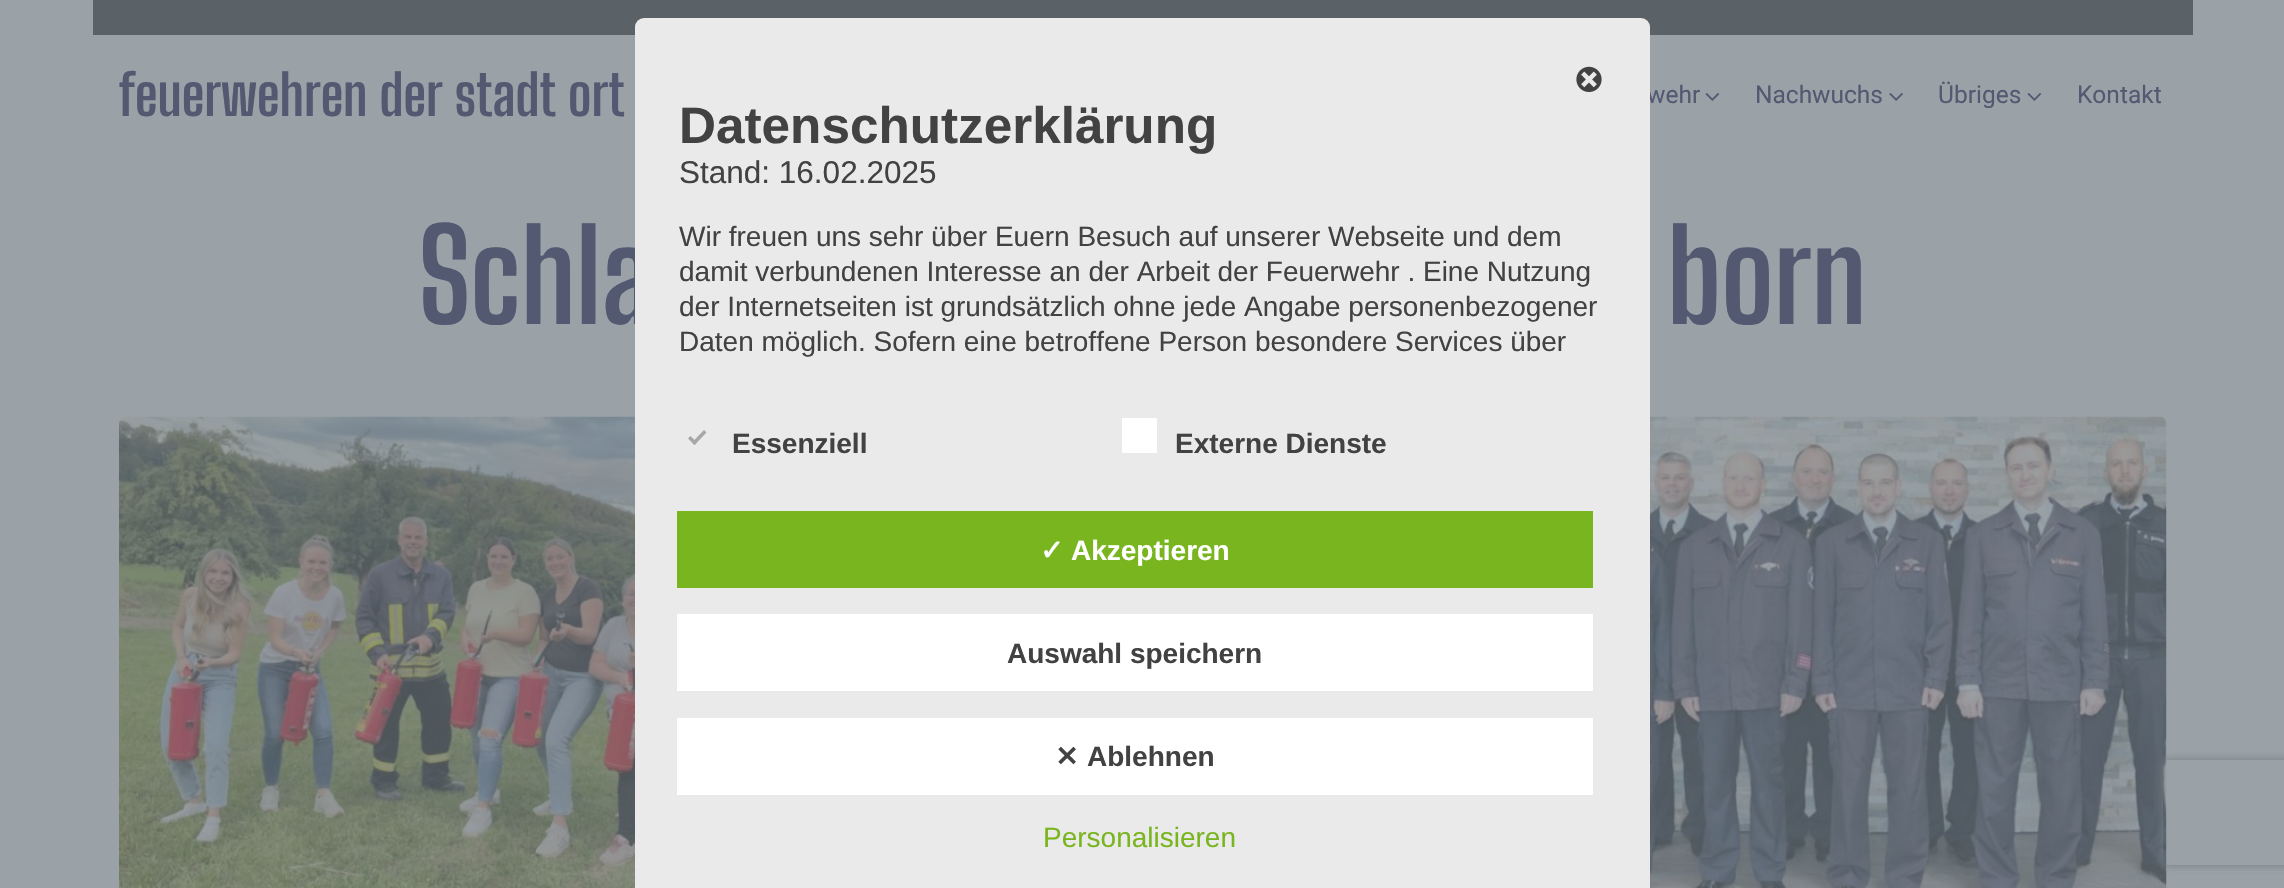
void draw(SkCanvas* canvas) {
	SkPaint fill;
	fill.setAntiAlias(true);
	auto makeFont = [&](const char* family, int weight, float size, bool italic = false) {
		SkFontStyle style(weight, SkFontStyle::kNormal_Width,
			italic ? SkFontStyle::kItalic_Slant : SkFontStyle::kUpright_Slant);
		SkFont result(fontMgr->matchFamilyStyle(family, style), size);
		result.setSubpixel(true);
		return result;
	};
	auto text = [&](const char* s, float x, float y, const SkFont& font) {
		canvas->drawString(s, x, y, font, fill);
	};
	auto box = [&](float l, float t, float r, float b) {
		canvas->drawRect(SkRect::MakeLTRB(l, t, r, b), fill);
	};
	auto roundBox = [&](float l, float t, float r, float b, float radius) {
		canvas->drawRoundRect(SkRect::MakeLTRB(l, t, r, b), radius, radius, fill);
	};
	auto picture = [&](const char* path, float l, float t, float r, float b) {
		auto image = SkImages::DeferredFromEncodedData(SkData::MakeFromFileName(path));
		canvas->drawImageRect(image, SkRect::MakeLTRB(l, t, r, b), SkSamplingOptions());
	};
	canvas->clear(0xFF9BA2A7);
	fill.setColor(0xFF5A6267);
	box(93, 0, 2193, 35);
	picture("image0.png", 1705, 93, 1720, 101);
	picture("image1.png", 1889, 93, 1903, 101);
	picture("image0.png", 2027, 93, 2042, 101);
	picture("image2.png", 119, 416, 635, 888);
	picture("image3.png", 1650, 416, 2167, 888);
	canvas->save();
	canvas->clipPath(SkPathBuilder(SkPathFillType::kEvenOdd).moveTo(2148, 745).lineTo(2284, 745).lineTo(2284, 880).lineTo(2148, 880).close().moveTo(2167, 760).lineTo(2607, 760).cubicTo(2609, 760, 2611, 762, 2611, 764).lineTo(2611, 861).cubicTo(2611, 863, 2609, 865, 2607, 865).lineTo(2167, 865).cubicTo(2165, 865, 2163, 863, 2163, 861).lineTo(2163, 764).cubicTo(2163, 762, 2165, 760, 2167, 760).close().detach(), true);
	fill.setColor(0xFF737B7F);
	fill.setMaskFilter(SkMaskFilter::MakeBlur(kNormal_SkBlurStyle, 4.5f));
	canvas->drawRoundRect(SkRect::MakeLTRB(2163, 760, 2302, 865), 4, 4, fill);
	fill.setMaskFilter(nullptr);
	canvas->restore();
	auto font1 = makeFont("Big Shoulders Display", 100, 56);
	fill.setColor(0xFF525971);
	text("feuerwehren der stadt ort", 119, 116, font1);
	auto font2 = makeFont("Roboto", 400, 24.5f);
	text("wehr", 1647, 103, font2);
	text("Nachwuchs", 1755, 103, font2);
	text("Übriges", 1938, 103, font2);
	text("Kontakt", 2077, 103, font2);
	auto font3 = makeFont("Big Shoulders Display", 100, 126);
	text("Schla", 419, 324, font3);
	text("born", 1667, 324, font3);
	fill.setColor(0xFFEAEAEA);
	roundBox(635, 18, 1650, 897, 9);
	picture("image4.png", 1576, 66, 1602, 92);
	auto font4 = makeFont("Liberation Sans", 700, 51.25f);
	fill.setColor(0xFF424242);
	text("Datenschutzerklärung", 679, 143, font4);
	auto font5 = makeFont("Liberation Sans", 400, 31.5f);
	text("Stand: 16.02.2025", 679, 183, font5);
	auto font6 = makeFont("Liberation Sans", 400, 28);
	text("Wir freuen uns sehr über Euern Besuch auf unserer Webseite und dem", 679, 246, font6);
	text("damit verbundenen Interesse an der Arbeit der Feuerwehr . Eine Nutzung", 679, 281, font6);
	text("der Internetseiten ist grundsätzlich ohne jede Angabe personenbezogener", 679, 316, font6);
	text("Daten möglich. Sofern eine betroffene Person besondere Services über", 679, 351, font6);
	fill.setColor(0xFFA7A7A7);
	canvas->drawPath(SkPathBuilder().moveTo(704, 430).lineTo(706.5f, 432.5f).lineTo(694.5f, 445).lineTo(692, 442.5f).close().detach(), fill);
	canvas->drawPath(SkPathBuilder().moveTo(690.5f, 436).lineTo(697, 442.5f).lineTo(694.5f, 445).lineTo(688, 438.5f).close().detach(), fill);
	auto font7 = makeFont("Liberation Sans", 700, 28);
	fill.setColor(0xFF424242);
	text("Essenziell", 732, 453, font7);
	fill.setColor(0xFFFFFFFF);
	box(1122, 418, 1157, 453);
	fill.setColor(0xFF424242);
	text("Externe Dienste", 1175, 453, font7);
	fill.setColor(0xFF79B51F);
	box(677, 511, 1593, 588);
	auto font8 = makeFont("DejaVu Sans", 700, 28);
	fill.setColor(0xFFFFFFFF);
	text("✓", 1040, 560, font8);
	text("Akzeptieren", 1071, 560, font7);
	box(677, 614, 1593, 691);
	fill.setColor(0xFF424242);
	text("Auswahl speichern", 1007, 663, font7);
	fill.setColor(0xFFFFFFFF);
	box(677, 718, 1593, 795);
	fill.setColor(0xFF424242);
	text("✕", 1055, 766, font8);
	text("Ablehnen", 1087, 766, font7);
	fill.setColor(0xFF79B51F);
	text("Personalisieren", 1043, 847, font6);
}
